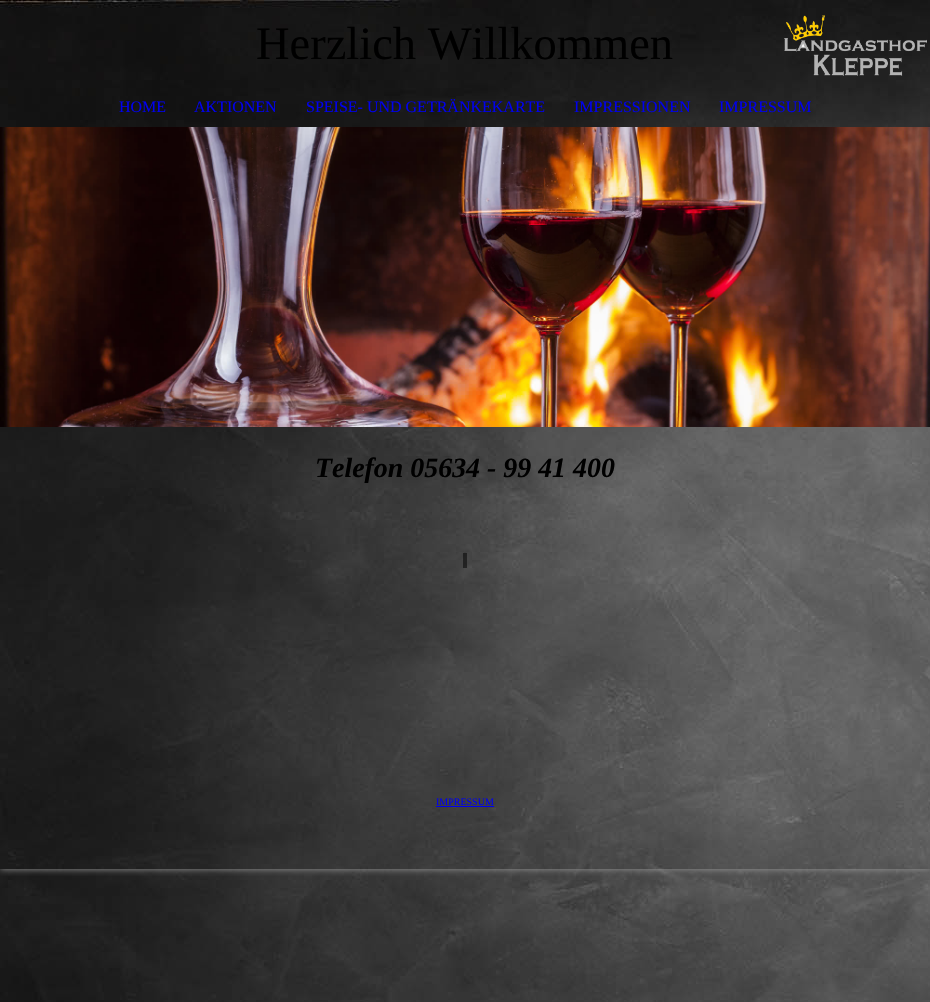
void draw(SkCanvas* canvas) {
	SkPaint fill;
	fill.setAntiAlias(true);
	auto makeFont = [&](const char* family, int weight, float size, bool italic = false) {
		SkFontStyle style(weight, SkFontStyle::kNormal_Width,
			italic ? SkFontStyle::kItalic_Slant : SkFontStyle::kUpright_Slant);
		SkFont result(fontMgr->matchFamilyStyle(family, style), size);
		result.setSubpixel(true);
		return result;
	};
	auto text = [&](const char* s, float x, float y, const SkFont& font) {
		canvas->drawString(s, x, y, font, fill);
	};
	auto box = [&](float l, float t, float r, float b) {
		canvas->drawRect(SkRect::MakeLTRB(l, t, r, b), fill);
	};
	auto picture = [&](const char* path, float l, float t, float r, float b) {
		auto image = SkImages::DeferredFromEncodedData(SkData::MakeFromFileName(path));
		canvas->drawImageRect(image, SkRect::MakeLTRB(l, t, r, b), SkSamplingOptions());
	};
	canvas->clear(0xFFFFFFFF);
	picture("image0.png", 0, 0, 930, 1002);
	canvas->save();
	canvas->clipRect(SkRect::MakeLTRB(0, 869, 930, 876));
	fill.setColor(0xFF999999);
	fill.setMaskFilter(SkMaskFilter::MakeBlur(kNormal_SkBlurStyle, 3.5f));
	canvas->drawRect(SkRect::MakeLTRB(0, 0, 930, 869), fill);
	fill.setMaskFilter(nullptr);
	canvas->restore();
	picture("image1.png", 784, 15, 927, 76);
	picture("image2.png", 0, 127, 930, 427);
	fill.setColor(0x80000000);
	box(463, 553, 467, 568);
	fill.setColor(0xFF0000EE);
	box(436, 806, 494, 807);
	auto font1 = makeFont("Liberation Serif", 400, 46.5f);
	fill.setColor(0xFF000000);
	text("Herzlich Willkommen", 256, 59, font1);
	auto font2 = makeFont("Liberation Serif", 400, 16);
	fill.setColor(0xFF0000EE);
	text("HOME", 119, 112, font2);
	text("AKTIONEN", 194, 112, font2);
	text("SPEISE- UND GETRÄNKEKARTE", 306, 112, font2);
	text("IMPRESSIONEN", 574, 112, font2);
	text("IMPRESSUM", 719, 112, font2);
	auto font3 = makeFont("Liberation Serif", 700, 27.9f, true);
	fill.setColor(0xFF000000);
	text("Telefon 05634 - 99 41 400", 315, 477, font3);
	auto font4 = makeFont("Liberation Serif", 400, 10);
	fill.setColor(0xFF0000EE);
	text("IMPRESSUM", 436, 805, font4);
}
